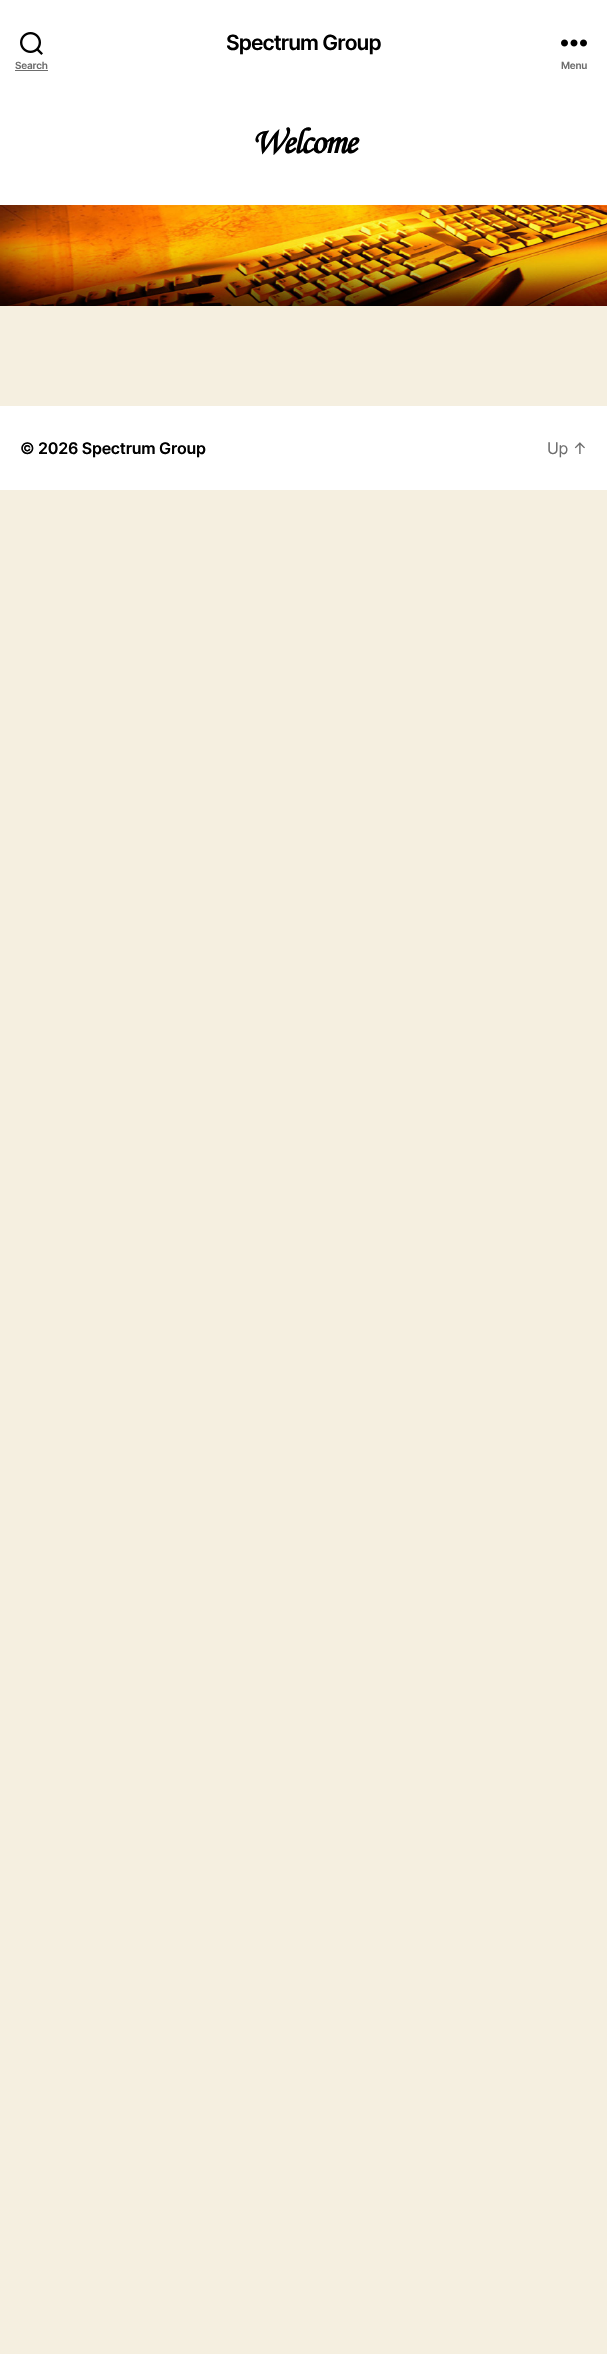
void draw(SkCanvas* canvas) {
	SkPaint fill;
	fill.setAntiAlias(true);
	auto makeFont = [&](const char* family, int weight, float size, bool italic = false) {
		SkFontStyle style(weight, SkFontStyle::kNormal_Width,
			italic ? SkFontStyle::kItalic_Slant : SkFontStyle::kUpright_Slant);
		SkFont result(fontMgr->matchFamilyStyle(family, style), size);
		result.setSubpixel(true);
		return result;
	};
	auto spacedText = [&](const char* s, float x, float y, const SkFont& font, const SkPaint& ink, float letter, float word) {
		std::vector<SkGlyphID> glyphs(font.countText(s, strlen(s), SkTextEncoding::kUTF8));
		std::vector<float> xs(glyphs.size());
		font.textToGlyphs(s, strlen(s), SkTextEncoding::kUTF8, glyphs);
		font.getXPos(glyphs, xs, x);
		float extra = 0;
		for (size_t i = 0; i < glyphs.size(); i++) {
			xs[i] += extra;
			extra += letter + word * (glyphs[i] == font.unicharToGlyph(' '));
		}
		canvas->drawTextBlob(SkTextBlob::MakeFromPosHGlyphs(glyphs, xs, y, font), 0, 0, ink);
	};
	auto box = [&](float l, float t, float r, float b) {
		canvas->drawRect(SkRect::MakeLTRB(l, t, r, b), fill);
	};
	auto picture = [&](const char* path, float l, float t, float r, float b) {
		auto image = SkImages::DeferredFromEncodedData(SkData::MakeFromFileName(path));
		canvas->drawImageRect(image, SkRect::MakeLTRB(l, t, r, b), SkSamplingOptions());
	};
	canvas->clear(0xFFF5EFE0);
	fill.setColor(0xFFFFFFFF);
	box(0, 0, 607, 205);
	picture("image0.png", 20, 32, 43, 55);
	fill.setColor(0xFF6D6D6D);
	box(15, 70, 48, 71);
	picture("image1.png", 561, 39, 587, 47);
	picture("image2.png", 0, 205, 607, 306);
	fill.setColor(0xFFFFFFFF);
	box(0, 406, 607, 490);
	auto font1 = makeFont("Inter", 600, 21);
	fill.setColor(0xFF000000);
	spacedText("Spectrum Group", 226, 50, font1, fill, -0.9f, 0);
	auto font2 = makeFont("Inter", 600, 10);
	fill.setColor(0xFF6D6D6D);
	spacedText("Search", 15, 69, font2, fill, -0.25f, 0);
	spacedText("Menu", 561, 69, font2, fill, -0.25f, 0);
	auto font3 = makeFont("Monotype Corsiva", 700, 36, true);
	fill.setColor(0xFF000000);
	spacedText("Welcome", 252, 153, font3, fill, -1.5f, 0);
	auto font4 = makeFont("Inter", 600, 16);
	spacedText("© 2026 Spectrum Group", 20, 454, font4, fill, -0.25f, 0);
	auto font5 = makeFont("Inter", 400, 16);
	fill.setColor(0xFF6D6D6D);
	spacedText("Up ↑", 547, 454, font5, fill, -0.25f, 0);
}
